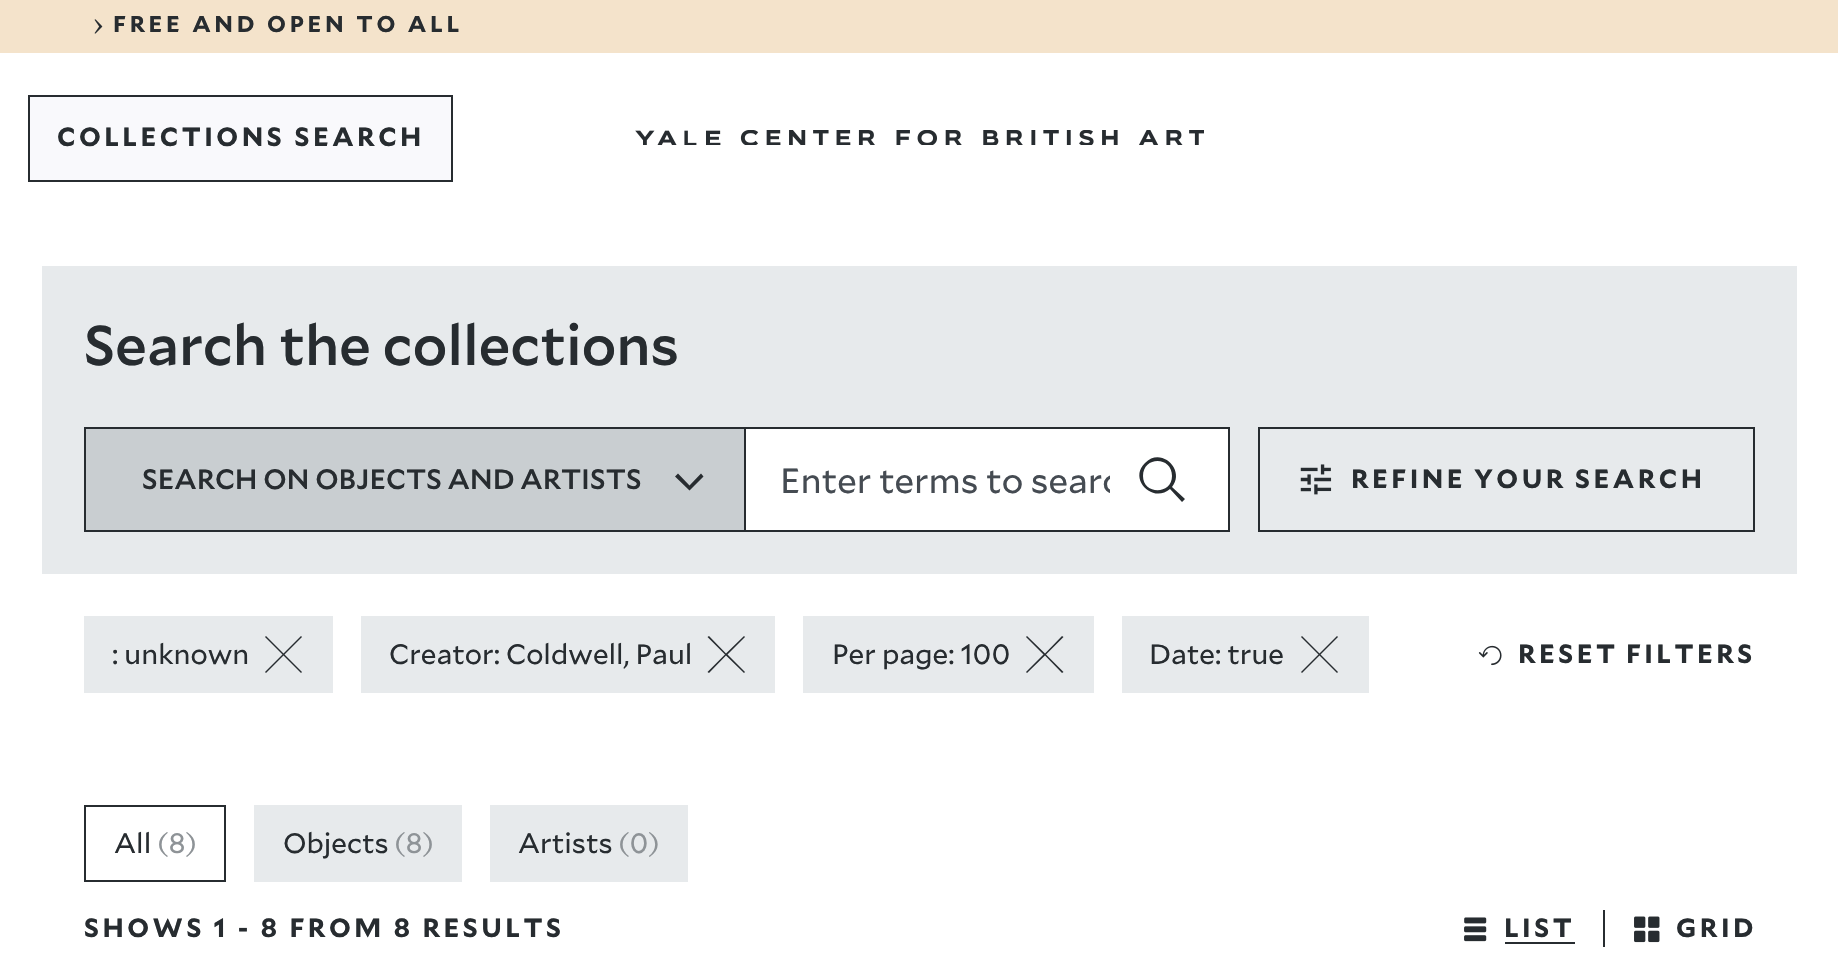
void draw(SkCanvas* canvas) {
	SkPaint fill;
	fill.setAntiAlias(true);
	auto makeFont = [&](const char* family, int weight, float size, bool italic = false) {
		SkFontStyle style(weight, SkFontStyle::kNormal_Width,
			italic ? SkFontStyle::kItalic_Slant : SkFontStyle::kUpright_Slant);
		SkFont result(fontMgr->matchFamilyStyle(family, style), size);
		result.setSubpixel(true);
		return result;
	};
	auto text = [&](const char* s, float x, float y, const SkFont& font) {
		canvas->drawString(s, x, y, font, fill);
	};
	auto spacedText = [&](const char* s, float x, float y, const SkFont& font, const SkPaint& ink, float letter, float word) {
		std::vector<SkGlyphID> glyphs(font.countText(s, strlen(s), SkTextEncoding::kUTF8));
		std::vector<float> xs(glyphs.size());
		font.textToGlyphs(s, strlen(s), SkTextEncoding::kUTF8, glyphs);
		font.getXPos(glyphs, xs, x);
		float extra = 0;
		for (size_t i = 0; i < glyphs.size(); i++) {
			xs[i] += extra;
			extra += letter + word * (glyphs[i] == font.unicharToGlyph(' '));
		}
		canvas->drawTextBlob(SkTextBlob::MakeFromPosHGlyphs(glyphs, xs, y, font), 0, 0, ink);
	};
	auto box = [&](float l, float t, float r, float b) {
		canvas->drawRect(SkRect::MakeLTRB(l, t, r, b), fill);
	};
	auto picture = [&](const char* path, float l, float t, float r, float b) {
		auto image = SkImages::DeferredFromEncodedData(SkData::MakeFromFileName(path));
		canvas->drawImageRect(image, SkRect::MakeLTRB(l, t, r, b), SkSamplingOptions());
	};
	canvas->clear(0xFFFFFFFF);
	fill.setColor(0xFFF4E3CB);
	box(0, 0, 1838, 53);
	picture("image0.png", 94, 19, 103, 34);
	fill.setColor(0xFFF9F9FC);
	canvas->drawRect(SkRect::MakeLTRB(29, 96, 452, 181), fill);
	fill.setStyle(SkPaint::kStroke_Style);
	fill.setStrokeWidth(2);
	fill.setColor(0xFF272C30);
	canvas->drawRect(SkRect::MakeLTRB(29, 96, 452, 181), fill);
	picture("image1.png", 635, 130, 1204, 145);
	fill.setStyle(SkPaint::kFill_Style);
	fill.setColor(0xFFE7EAEC);
	box(42, 266, 1797, 574);
	fill.setColor(0xFFC9CED1);
	canvas->drawRect(SkRect::MakeLTRB(85, 428, 745, 531), fill);
	fill.setStyle(SkPaint::kStroke_Style);
	fill.setColor(0xFF272C30);
	canvas->drawRect(SkRect::MakeLTRB(85, 428, 745, 531), fill);
	fill.setStyle(SkPaint::kFill_Style);
	canvas->drawPath(SkPathBuilder().moveTo(689.5f, 490.5f).lineTo(675, 476.5f).lineTo(678, 473.5f).lineTo(689.5f, 485.5f).lineTo(701, 473.5f).lineTo(703.5f, 476.5f).close().detach(), fill);
	fill.setColor(0xFFFFFFFF);
	canvas->drawRect(SkRect::MakeLTRB(745, 428, 1229, 531), fill);
	fill.setStyle(SkPaint::kStroke_Style);
	fill.setColor(0xFF272C30);
	canvas->drawRect(SkRect::MakeLTRB(745, 428, 1229, 531), fill);
	fill.setStyle(SkPaint::kFill_Style);
	canvas->drawPath(SkPathBuilder().moveTo(1185, 499).lineTo(1172, 487).cubicTo(1186, 470, 1161, 446, 1145, 463).cubicTo(1128, 479, 1153, 504, 1170, 489).lineTo(1182, 502).moveTo(1143, 476).cubicTo(1143, 456, 1172, 456, 1172, 476).cubicTo(1172, 495, 1143, 495, 1143, 476).close().detach(), fill);
	fill.setStyle(SkPaint::kStroke_Style);
	canvas->drawRect(SkRect::MakeLTRB(1259, 428, 1754, 531), fill);
	picture("image2.png", 1300, 464, 1332, 495);
	fill.setStyle(SkPaint::kFill_Style);
	fill.setColor(0xFFE7EAEC);
	box(84, 616, 333, 693);
	fill.setColor(0xFF272C30);
	canvas->drawPath(SkPathBuilder().moveTo(302, 637).lineTo(301, 636).lineTo(283.5f, 653.5f).lineTo(266, 636).lineTo(265, 637).lineTo(282.5f, 654.5f).lineTo(265, 672).lineTo(266, 673).lineTo(283.5f, 655.5f).lineTo(301, 673).lineTo(302, 672).lineTo(284.5f, 654.5f).close().detach(), fill);
	fill.setColor(0xFFE7EAEC);
	box(361, 616, 775, 693);
	fill.setColor(0xFF272C30);
	canvas->drawPath(SkPathBuilder().moveTo(745, 637).lineTo(744, 636).lineTo(726, 653.5f).lineTo(709, 636).lineTo(707.5f, 637).lineTo(725, 654.5f).lineTo(707.5f, 672).lineTo(709, 673).lineTo(726, 655.5f).lineTo(744, 673).lineTo(745, 672).lineTo(727.5f, 654.5f).close().detach(), fill);
	fill.setColor(0xFFE7EAEC);
	box(803, 616, 1094, 693);
	fill.setColor(0xFF272C30);
	canvas->drawPath(SkPathBuilder().moveTo(1063.5f, 637).lineTo(1062, 636).lineTo(1045, 653.5f).lineTo(1027, 636).lineTo(1026, 637).lineTo(1043.5f, 654.5f).lineTo(1026, 672).lineTo(1027, 673).lineTo(1045, 655.5f).lineTo(1062, 673).lineTo(1063.5f, 672).lineTo(1046, 654.5f).close().detach(), fill);
	fill.setColor(0xFFE7EAEC);
	box(1122, 616, 1369, 693);
	fill.setColor(0xFF272C30);
	canvas->drawPath(SkPathBuilder().moveTo(1338, 637).lineTo(1337, 636).lineTo(1319.5f, 653.5f).lineTo(1302, 636).lineTo(1301, 637).lineTo(1318.5f, 654.5f).lineTo(1301, 672).lineTo(1302, 673).lineTo(1319.5f, 655.5f).lineTo(1337, 673).lineTo(1338, 672).lineTo(1320.5f, 654.5f).close().detach(), fill);
	picture("image3.png", 1478, 645, 1502, 666);
	fill.setStyle(SkPaint::kStroke_Style);
	canvas->drawRect(SkRect::MakeLTRB(85, 806, 225, 881), fill);
	fill.setStyle(SkPaint::kFill_Style);
	fill.setColor(0xFFE7EAEC);
	box(254, 805, 462, 882);
	box(490, 805, 688, 882);
	picture("image4.png", 1464, 917, 1487, 942);
	fill.setColor(0xFF272C30);
	box(1505, 942, 1575, 944);
	box(1603, 910, 1605, 947);
	picture("image5.png", 1634, 916, 1660, 943);
	auto font1 = makeFont("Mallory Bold", 700, 22.75f);
	spacedText("FREE AND OPEN TO ALL", 113, 32, font1, fill, 3.75f, 0);
	auto font2 = makeFont("Mallory Bold", 700, 26.25f);
	spacedText("COLLECTIONS SEARCH", 57, 146, font2, fill, 3.5f, 0);
	auto font3 = makeFont("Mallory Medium", 500, 56);
	text("Search the collections", 84, 365, font3);
	auto font4 = makeFont("Mallory Medium", 500, 28);
	spacedText("SEARCH ON OBJECTS AND ARTISTS", 142, 489, font4, fill, 0, -0.5f);
	canvas->save();
	canvas->clipRect(SkRect::MakeLTRB(781, 455, 1110, 504));
	auto font5 = makeFont("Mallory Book", 400, 35);
	fill.setColor(0xFF454B52);
	text("Enter terms to searc", 780, 493, font5);
	canvas->restore();
	fill.setColor(0xFF272C30);
	spacedText("REFINE YOUR SEARCH", 1351, 488, font2, fill, 3.5f, -1);
	auto font6 = makeFont("Mallory Book", 400, 28);
	text(": unknown", 112, 664, font6);
	text("Creator: Coldwell, Paul", 389, 664, font6);
	text("Per page: 100", 832, 664, font6);
	text("Date: true", 1149, 664, font6);
	spacedText("RESET FILTERS", 1518, 663, font2, fill, 3.5f, -2);
	text("All", 114, 853, font6);
	fill.setColor(0xFF8E9397);
	text("(8)", 157, 853, font6);
	fill.setColor(0xFF272C30);
	text("Objects", 283, 853, font6);
	fill.setColor(0xFF8E9397);
	text("(8)", 394, 853, font6);
	fill.setColor(0xFF272C30);
	text("Artists", 518, 853, font6);
	fill.setColor(0xFF8E9397);
	text("(0)", 618, 853, font6);
	fill.setColor(0xFF272C30);
	spacedText("SHOWS 1 - 8 FROM 8 RESULTS", 84, 937, font2, fill, 3.5f, -0.5f);
	spacedText("LIST", 1504, 937, font2, fill, 3.5f, 0);
	spacedText("GRID", 1676, 937, font2, fill, 3.5f, 0);
}
